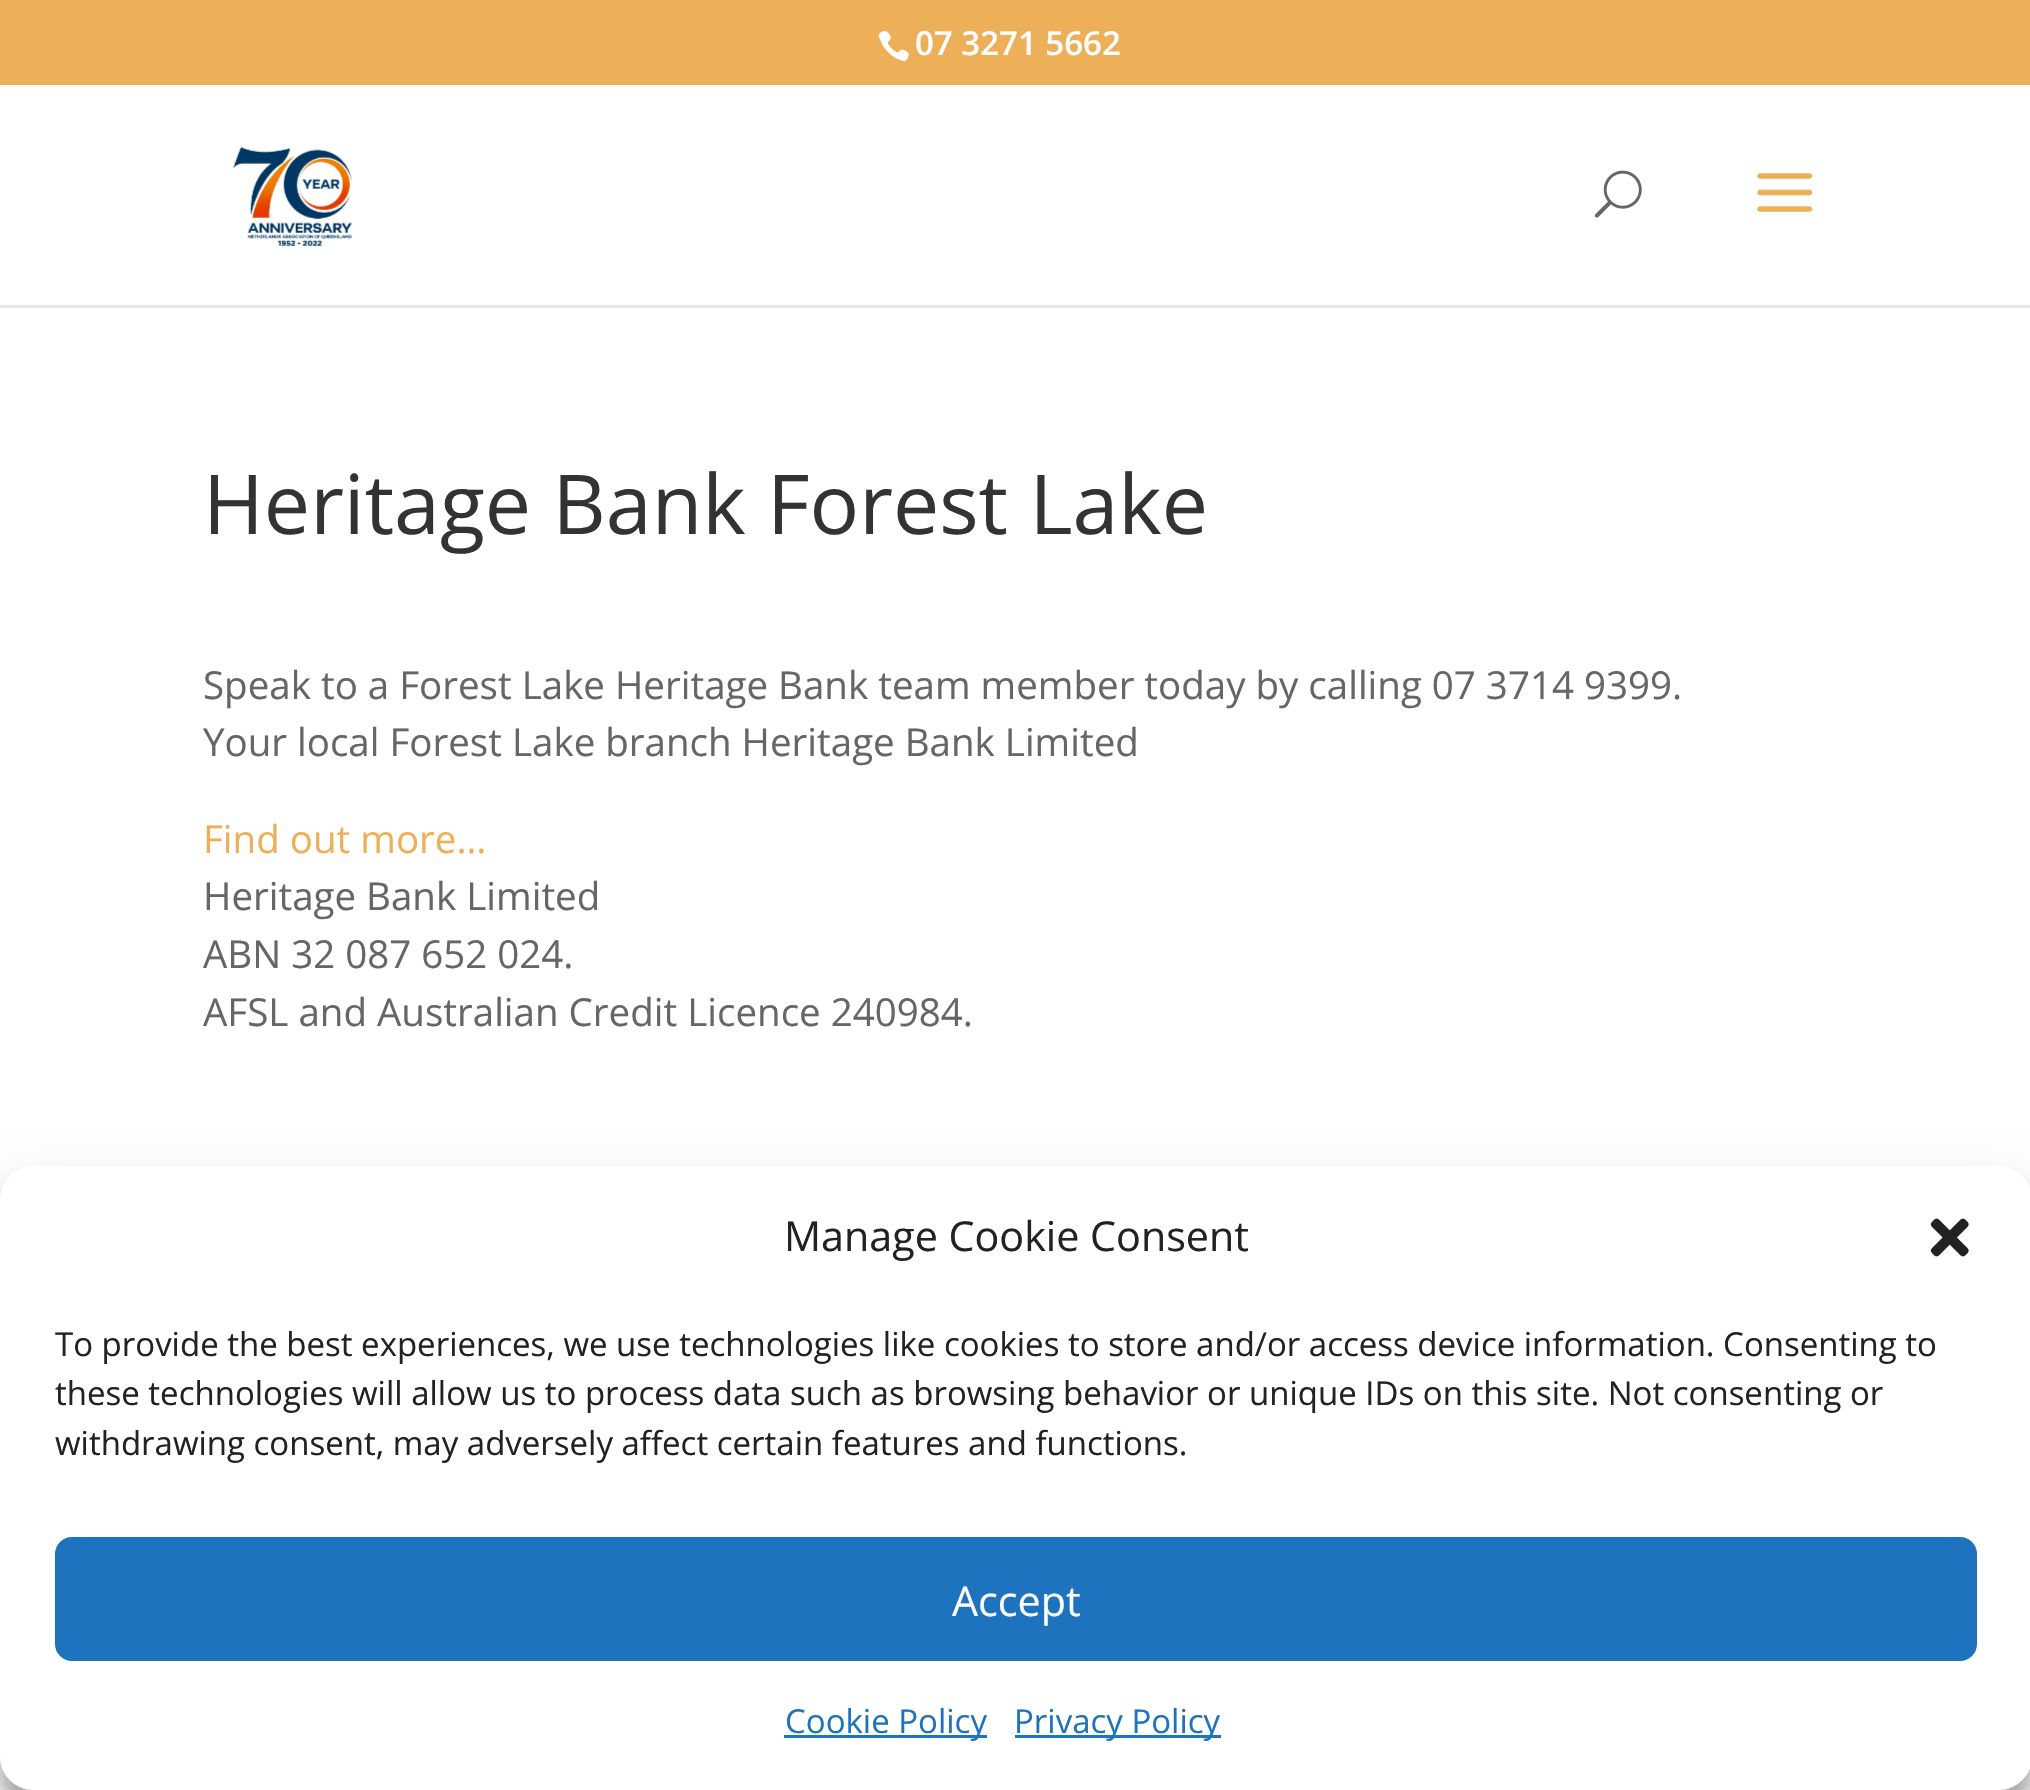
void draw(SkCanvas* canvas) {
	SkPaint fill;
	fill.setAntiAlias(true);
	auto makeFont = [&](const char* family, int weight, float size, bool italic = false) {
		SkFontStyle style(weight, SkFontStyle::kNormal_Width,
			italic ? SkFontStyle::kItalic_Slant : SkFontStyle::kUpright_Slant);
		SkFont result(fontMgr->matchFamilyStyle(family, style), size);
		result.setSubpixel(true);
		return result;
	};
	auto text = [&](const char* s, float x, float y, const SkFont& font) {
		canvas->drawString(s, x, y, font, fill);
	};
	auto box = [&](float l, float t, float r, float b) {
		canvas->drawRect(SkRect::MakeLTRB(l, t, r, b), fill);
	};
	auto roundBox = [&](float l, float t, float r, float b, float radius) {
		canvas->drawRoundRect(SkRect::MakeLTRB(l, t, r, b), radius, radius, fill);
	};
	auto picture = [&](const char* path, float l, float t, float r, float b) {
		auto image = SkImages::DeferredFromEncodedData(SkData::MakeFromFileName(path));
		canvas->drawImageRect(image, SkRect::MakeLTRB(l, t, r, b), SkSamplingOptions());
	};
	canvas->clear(0xFFFFFFFF);
	fill.setColor(0xFFEDB059);
	box(0, 0, 2030, 85);
	picture("image0.png", 878, 31, 909, 62);
	fill.setColor(0xFFE6E6E6);
	box(0, 305, 2030, 308);
	picture("image1.png", 232, 146, 352, 246);
	picture("image2.png", 1594, 170, 1642, 218);
	picture("image3.png", 1757, 173, 1813, 212);
	fill.setColor(0x3B000000);
	fill.setMaskFilter(SkMaskFilter::MakeBlur(kNormal_SkBlurStyle, 8));
	canvas->drawRoundRect(SkRect::MakeLTRB(0, 1183, 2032, 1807), 33, 33, fill);
	fill.setMaskFilter(nullptr);
	fill.setColor(0x30000000);
	fill.setMaskFilter(SkMaskFilter::MakeBlur(kNormal_SkBlurStyle, 27.5f));
	canvas->drawRoundRect(SkRect::MakeLTRB(0, 1194, 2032, 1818), 33, 33, fill);
	fill.setMaskFilter(nullptr);
	fill.setColor(0xFFFFFFFF);
	roundBox(0, 1166, 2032, 1790, 33);
	picture("image4.png", 1930, 1218, 1969, 1257);
	fill.setColor(0xFF1E73BE);
	canvas->drawRoundRect(SkRect::MakeLTRB(56.5f, 1538.5f, 1975.5f, 1659.5f), 15.5f, 15.5f, fill);
	fill.setStyle(SkPaint::kStroke_Style);
	fill.setStrokeWidth(3);
	canvas->drawRoundRect(SkRect::MakeLTRB(56.5f, 1538.5f, 1975.5f, 1659.5f), 15.5f, 15.5f, fill);
	fill.setStyle(SkPaint::kFill_Style);
	box(784, 1735, 987, 1738);
	box(1015, 1735, 1221, 1738);
	auto font1 = makeFont("Open Sans", 600, 33);
	fill.setColor(0xFFFFFFFF);
	text("07 3271 5662", 915, 55, font1);
	auto font2 = makeFont("Open Sans", 400, 82.5f);
	fill.setColor(0xFF333333);
	text("Heritage Bank Forest Lake", 203, 534, font2);
	auto font3 = makeFont("Open Sans", 400, 38.5f);
	fill.setColor(0xFF666666);
	text("Speak to a Forest Lake Heritage Bank team member today by calling 07 3714 9399.", 203, 699, font3);
	text("Your local Forest Lake branch Heritage Bank Limited", 203, 756, font3);
	fill.setColor(0xFFEDB059);
	text("Find out more…", 203, 853, font3);
	fill.setColor(0xFF666666);
	text("Heritage Bank Limited", 203, 910, font3);
	text("ABN 32 087 652 024.", 203, 968, font3);
	text("AFSL and Australian Credit Licence 240984.", 203, 1026, font3);
	auto font4 = makeFont("Open Sans", 400, 41.25f);
	fill.setColor(0xFF222222);
	text("Manage Cookie Consent", 784, 1251, font4);
	auto font5 = makeFont("Open Sans", 400, 33);
	text("To provide the best experiences, we use technologies like cookies to store and/or access device information. Consenting to", 55, 1356, font5);
	text("these technologies will allow us to process data such as browsing behavior or unique IDs on this site. Not consenting or", 55, 1405, font5);
	text("withdrawing consent, may adversely affect certain features and functions.", 55, 1455, font5);
	fill.setColor(0xFFFFFFFF);
	text("Accept", 952, 1616, font4);
	fill.setColor(0xFF1E73BE);
	text("Cookie Policy", 785, 1733, font5);
	text("Privacy Policy", 1014, 1733, font5);
}
